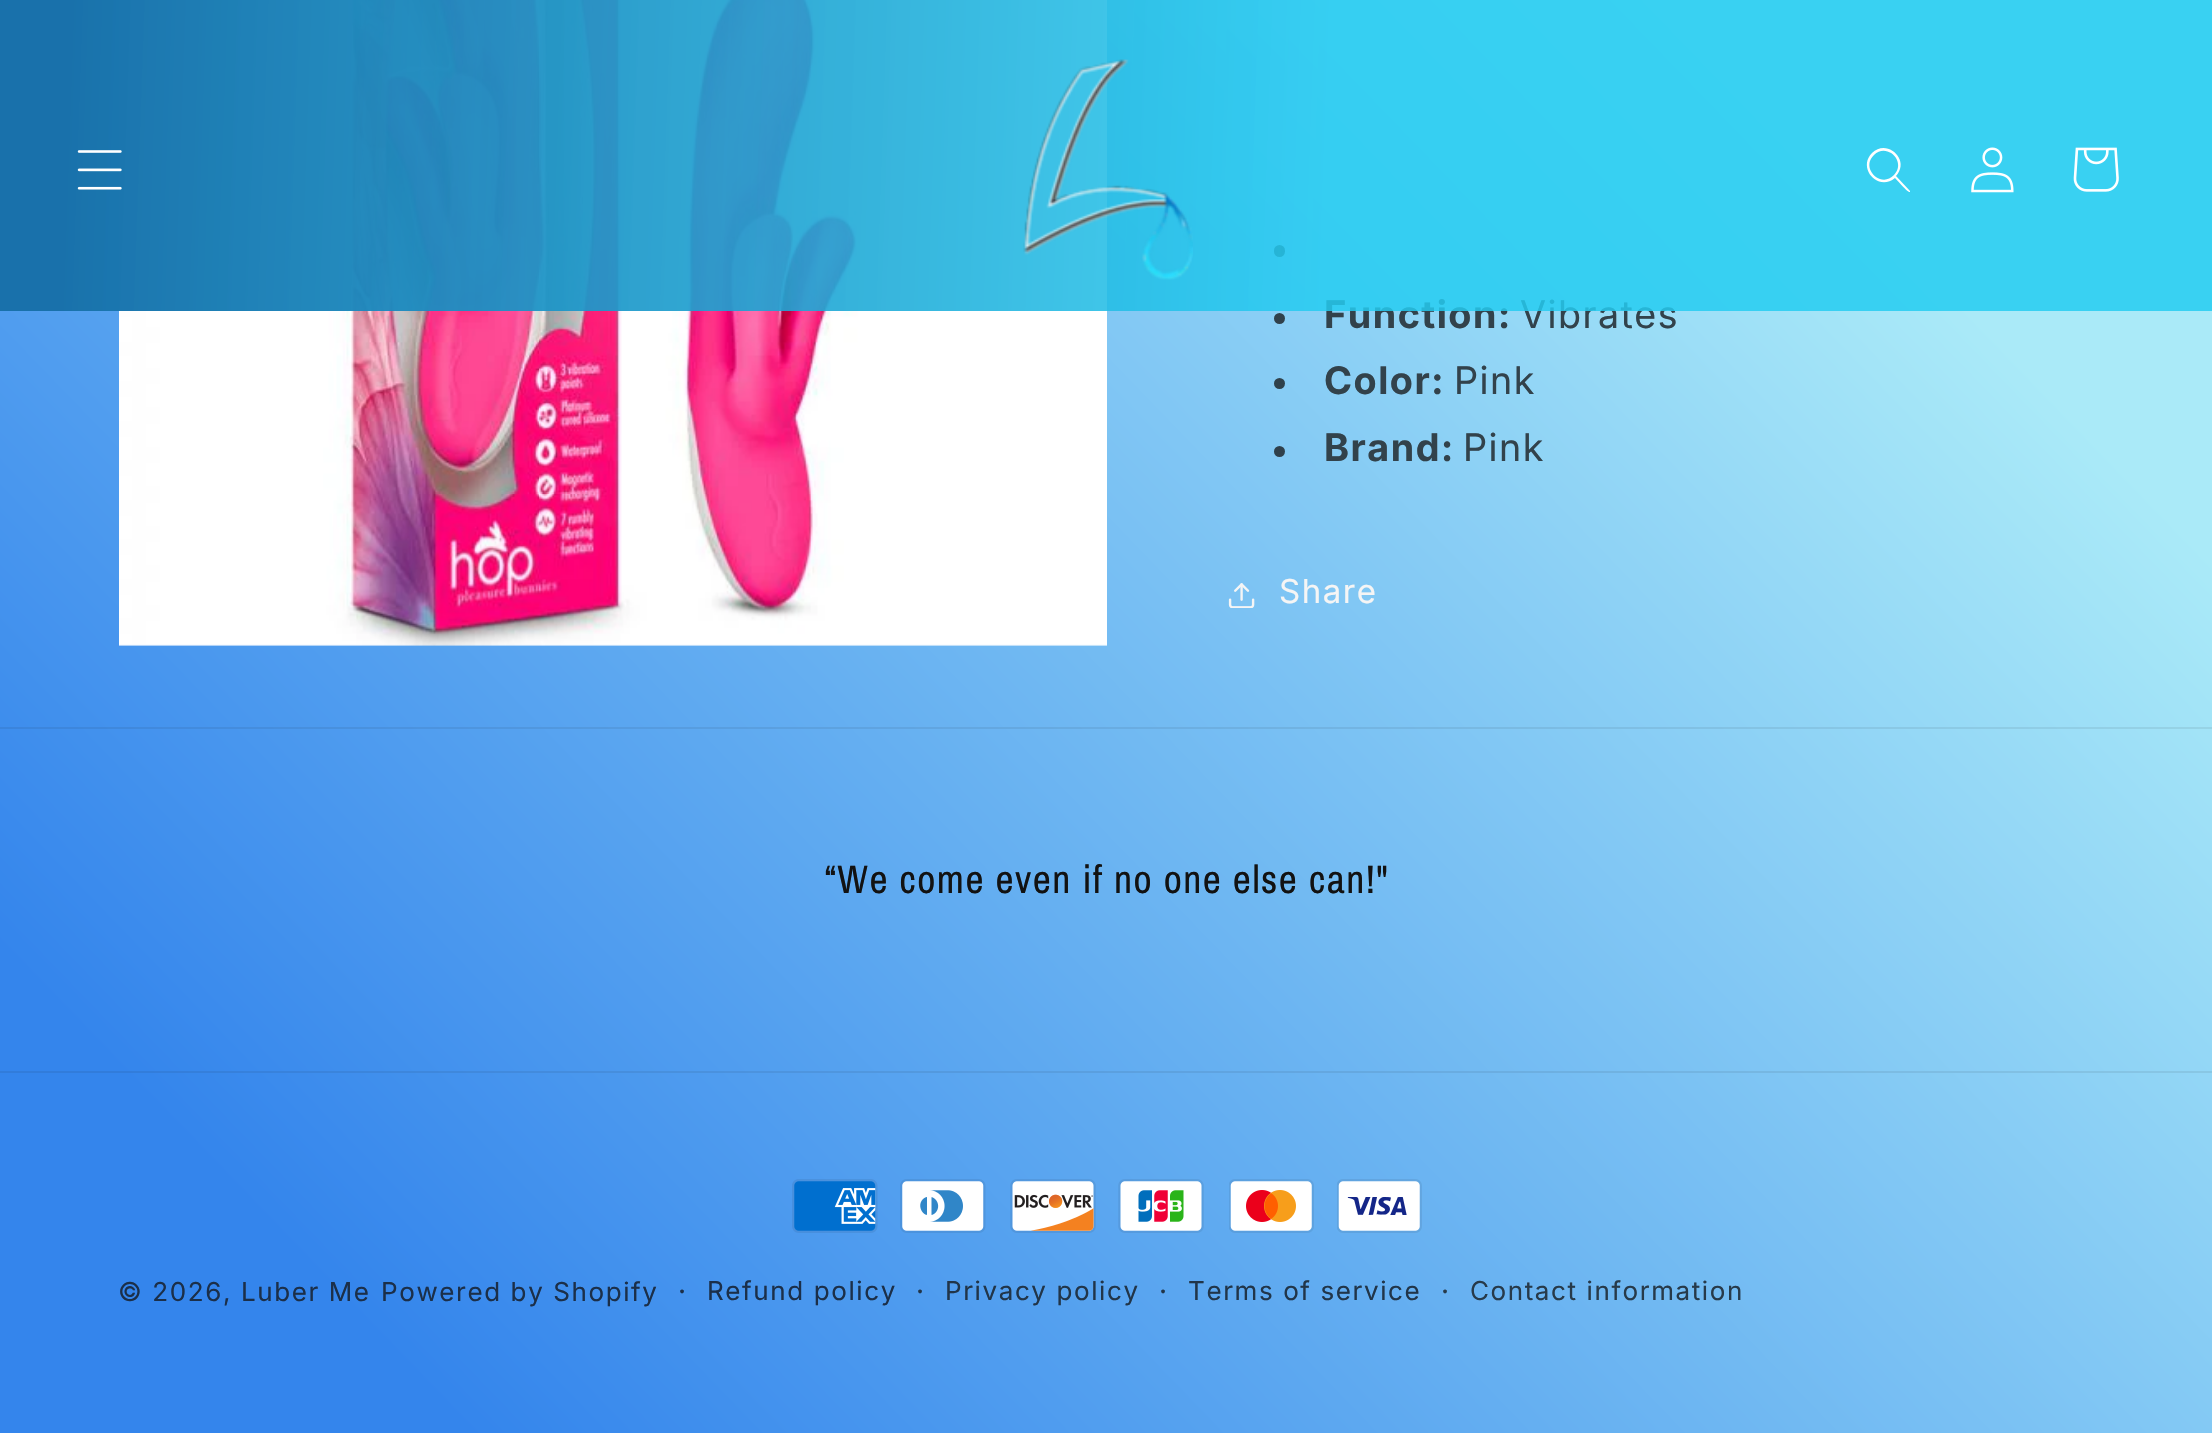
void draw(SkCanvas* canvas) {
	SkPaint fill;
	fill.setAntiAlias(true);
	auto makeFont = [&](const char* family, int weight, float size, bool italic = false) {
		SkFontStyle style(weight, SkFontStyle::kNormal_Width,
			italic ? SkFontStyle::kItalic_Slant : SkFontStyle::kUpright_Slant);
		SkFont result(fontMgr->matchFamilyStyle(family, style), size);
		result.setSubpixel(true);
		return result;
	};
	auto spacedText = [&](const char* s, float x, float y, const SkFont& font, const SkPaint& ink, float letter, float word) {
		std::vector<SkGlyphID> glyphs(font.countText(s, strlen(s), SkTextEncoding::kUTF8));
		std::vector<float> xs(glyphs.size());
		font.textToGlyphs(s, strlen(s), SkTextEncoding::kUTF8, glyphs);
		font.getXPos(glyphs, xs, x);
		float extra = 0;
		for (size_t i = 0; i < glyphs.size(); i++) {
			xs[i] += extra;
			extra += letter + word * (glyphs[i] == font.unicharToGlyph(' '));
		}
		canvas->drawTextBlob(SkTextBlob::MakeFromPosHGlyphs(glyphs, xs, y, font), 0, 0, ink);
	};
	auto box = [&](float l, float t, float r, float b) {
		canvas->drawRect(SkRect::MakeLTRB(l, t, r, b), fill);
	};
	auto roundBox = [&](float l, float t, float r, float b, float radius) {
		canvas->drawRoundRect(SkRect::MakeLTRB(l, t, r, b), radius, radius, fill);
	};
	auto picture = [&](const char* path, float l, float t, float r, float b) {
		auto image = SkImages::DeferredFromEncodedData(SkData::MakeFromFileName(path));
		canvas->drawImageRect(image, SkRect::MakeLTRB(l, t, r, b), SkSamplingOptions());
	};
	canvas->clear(0xFFFFFFFF);
	{
		const SkColor colors[] = {0xFF3485EC, 0xFFAAEAF8};
		const float stops[] = {0.13f, 0.85f};
		const SkPoint ends[] = {{176, 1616}, {2038, -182}};
		fill.setShader(SkGradientShader::MakeLinear(ends, colors, stops, 2, SkTileMode::kClamp));
		fill.setAlpha(255);
	}
	box(0, 0, 2212, 1433);
	{
		const SkColor colors[] = {0xFF317CDB, 0xFF9ED9E6};
		const float stops[] = {0.13f, 0.85f};
		const SkPoint ends[] = {{176, 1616}, {2038, -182}};
		fill.setShader(SkGradientShader::MakeLinear(ends, colors, stops, 2, SkTileMode::kClamp));
		fill.setAlpha(255);
	}
	box(0, 1071, 2212, 1073);
	box(0, 727, 2212, 729);
	picture("image4.png", 119, 0, 1107, 646);
	fill.setShader(nullptr);
	fill.setColor(0xFF31424B);
	roundBox(1274, 245, 1285, 257, 5.5f);
	fill.setColor(0xFF30414B);
	canvas->drawCircle(1279.5f, 318.5f, 5.5f, fill);
	fill.setColor(0xFF2F414B);
	canvas->drawCircle(1279.5f, 383.5f, 5.5f, fill);
	fill.setColor(0xFF2F404B);
	canvas->drawCircle(1279.5f, 451.5f, 5.5f, fill);
	picture("image5.png", 1228, 583, 1255, 608);
	picture("image6.png", 792, 1179, 878, 1233);
	picture("image7.png", 900, 1179, 986, 1233);
	picture("image8.png", 1010, 1179, 1096, 1233);
	picture("image9.png", 1118, 1179, 1204, 1233);
	picture("image10.png", 1229, 1179, 1314, 1233);
	picture("image11.png", 1337, 1179, 1422, 1233);
	auto font1 = makeFont("Inter", 700, 38);
	fill.setColor(0xFF32424B);
	spacedText("Function:", 1324, 328, font1, fill, 1.5f, 0);
	auto font2 = makeFont("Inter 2", 400, 38);
	spacedText("Vibrates", 1520, 328, font2, fill, 1.5f, 0);
	{
		const SkColor colors[] = {0xD623CCF1, 0xFF1971AB};
		const float stops[] = {0.41f, 0.97f};
		const SkPoint ends[] = {{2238, 756}, {-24, 677}};
		fill.setShader(SkGradientShader::MakeLinear(ends, colors, stops, 2, SkTileMode::kClamp));
		fill.setAlpha(255);
	}
	box(0, 0, 2212, 311);
	picture("image3.png", 2073, 147, 2119, 192);
	fill.setShader(nullptr);
	fill.setColor(0xFFFFFFFF);
	canvas->drawPath(SkPathBuilder(SkPathFillType::kEvenOdd).moveTo(1894, 175).cubicTo(1881, 189, 1860, 168, 1874, 155).cubicTo(1887, 142, 1907, 162, 1894, 175).close().moveTo(1895, 178).cubicTo(1878, 192, 1857, 168, 1872, 153).cubicTo(1887, 138, 1911, 160, 1896, 176).lineTo(1910, 191).lineTo(1910, 192).cubicTo(1908, 193, 1897, 180, 1895, 178).close().detach(), fill);
	picture("image0.png", 77, 150, 122, 190);
	picture("image2.png", 1971, 147, 2014, 193);
	picture("image1.png", 1023, 59, 1193, 280);
	fill.setColor(0xFF32424B);
	spacedText("Color:", 1324, 394, font1, fill, 1.5f, 0);
	spacedText("Pink", 1454, 394, font2, fill, 1.5f, 0);
	spacedText("Brand:", 1324, 461, font1, fill, 1.5f, 0);
	spacedText("Pink", 1463, 461, font2, fill, 1.5f, 0);
	auto font3 = makeFont("Inter", 400, 33);
	fill.setColor(0xFFF5F5F5);
	spacedText("Share", 1279, 603, font3, fill, 1.5f, 0);
	auto font4 = makeFont("Archivo Narrow", 400, 39.6f);
	fill.setColor(0xFF121212);
	spacedText("“We come even if no one else can!\"", 825, 893, font4, fill, 1.5f, 0);
	auto font5 = makeFont("Inter", 400, 26);
	fill.setColor(0xFF1B2F49);
	spacedText("© 2026, Luber Me", 118, 1301, font5, fill, 1.6f, 0);
	spacedText("Powered by Shopify", 381, 1301, font5, fill, 1.6f, 0);
	auto font6 = makeFont("Inter", 400, 28);
	spacedText("·", 678, 1301, font6, fill, 1.6f, 0);
	spacedText("Refund policy", 707, 1300, font5, fill, 1.6f, 0);
	fill.setColor(0xFF213549);
	spacedText("·", 916, 1301, font6, fill, 1.6f, 0);
	spacedText("Privacy policy", 945, 1300, font5, fill, 1.6f, 0);
	spacedText("·", 1159, 1301, font6, fill, 1.6f, 0);
	spacedText("Terms of service", 1188, 1300, font5, fill, 1.6f, 0);
	fill.setColor(0xFF273A4A);
	spacedText("·", 1441, 1301, font6, fill, 1.6f, 0);
	spacedText("Contact information", 1470, 1300, font5, fill, 1.6f, 0);
}
